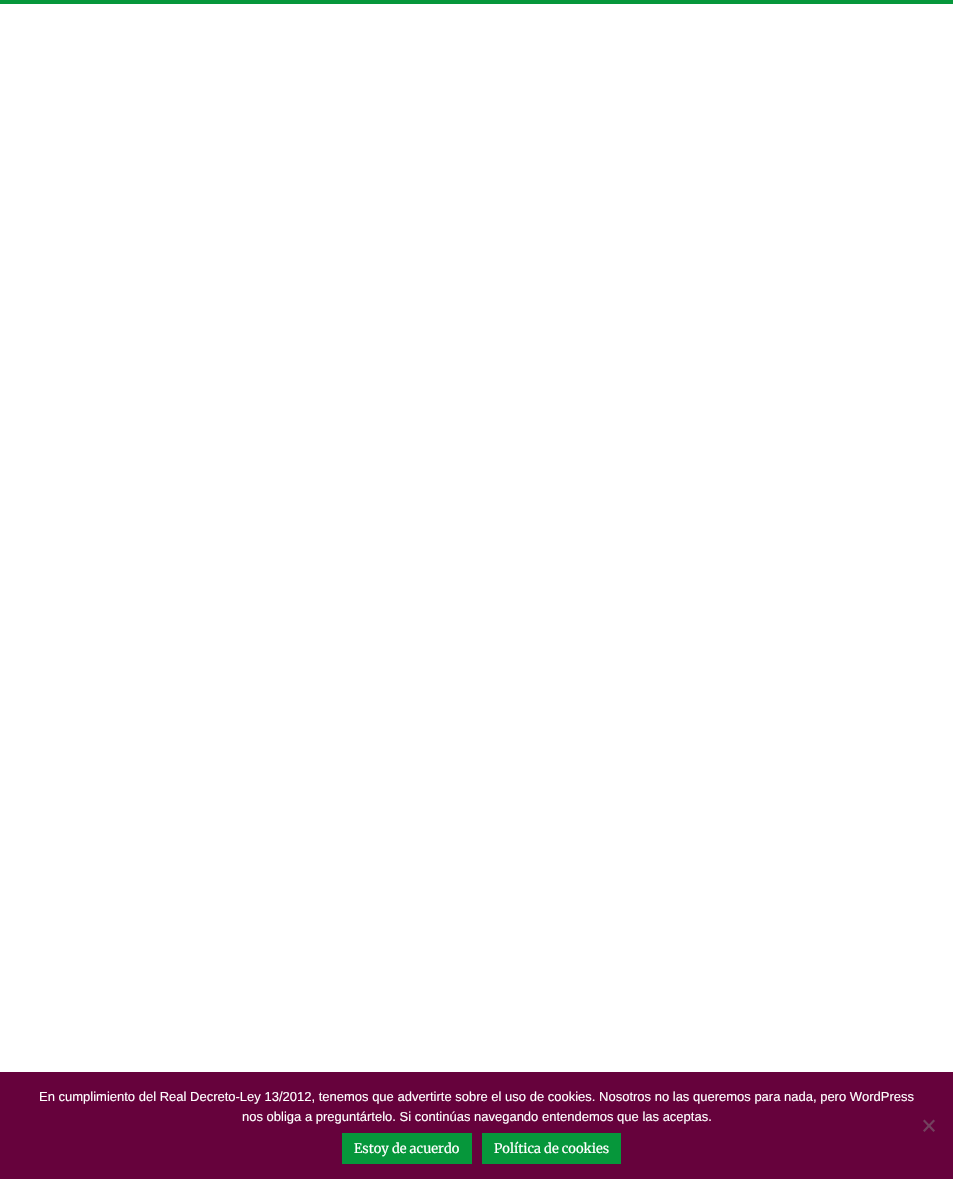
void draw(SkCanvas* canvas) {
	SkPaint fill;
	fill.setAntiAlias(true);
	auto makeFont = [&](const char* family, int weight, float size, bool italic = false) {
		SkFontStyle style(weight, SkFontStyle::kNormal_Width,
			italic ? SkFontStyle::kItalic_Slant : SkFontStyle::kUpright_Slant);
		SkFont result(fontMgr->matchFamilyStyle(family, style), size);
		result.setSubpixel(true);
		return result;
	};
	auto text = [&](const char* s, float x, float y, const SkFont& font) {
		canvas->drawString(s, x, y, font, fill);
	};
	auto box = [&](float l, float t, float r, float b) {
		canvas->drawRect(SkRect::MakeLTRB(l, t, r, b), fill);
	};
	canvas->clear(0xFFFFFFFF);
	fill.setColor(0xFF06973B);
	box(0, 0, 953, 4);
	fill.setColor(0xFF66023C);
	box(0, 1072, 953, 1179);
	fill.setColor(0xFF73415E);
	canvas->drawPath(SkPathBuilder().moveTo(933.5f, 1119.5f).lineTo(935, 1121).lineTo(924.5f, 1132).lineTo(923, 1130.5f).close().detach(), fill);
	canvas->drawPath(SkPathBuilder().moveTo(923, 1121).lineTo(924.5f, 1119.5f).lineTo(935, 1130.5f).lineTo(933.5f, 1132).close().detach(), fill);
	fill.setColor(0xFF06973B);
	box(342, 1133, 472, 1164);
	box(482, 1133, 621, 1164);
	auto font1 = makeFont("Liberation Sans", 400, 13);
	fill.setColor(0xFFFFFFFF);
	text("En cumplimiento del Real Decreto-Ley 13/2012, tenemos que advertirte sobre el uso de cookies. Nosotros no las queremos para nada, pero WordPress", 39, 1101, font1);
	text("nos obliga a preguntártelo. Si continúas navegando entendemos que las aceptas.", 242, 1121, font1);
	auto font2 = makeFont("Merriweather", 400, 13);
	text("Estoy de acuerdo", 354, 1153, font2);
	text("Política de cookies", 494, 1153, font2);
}
